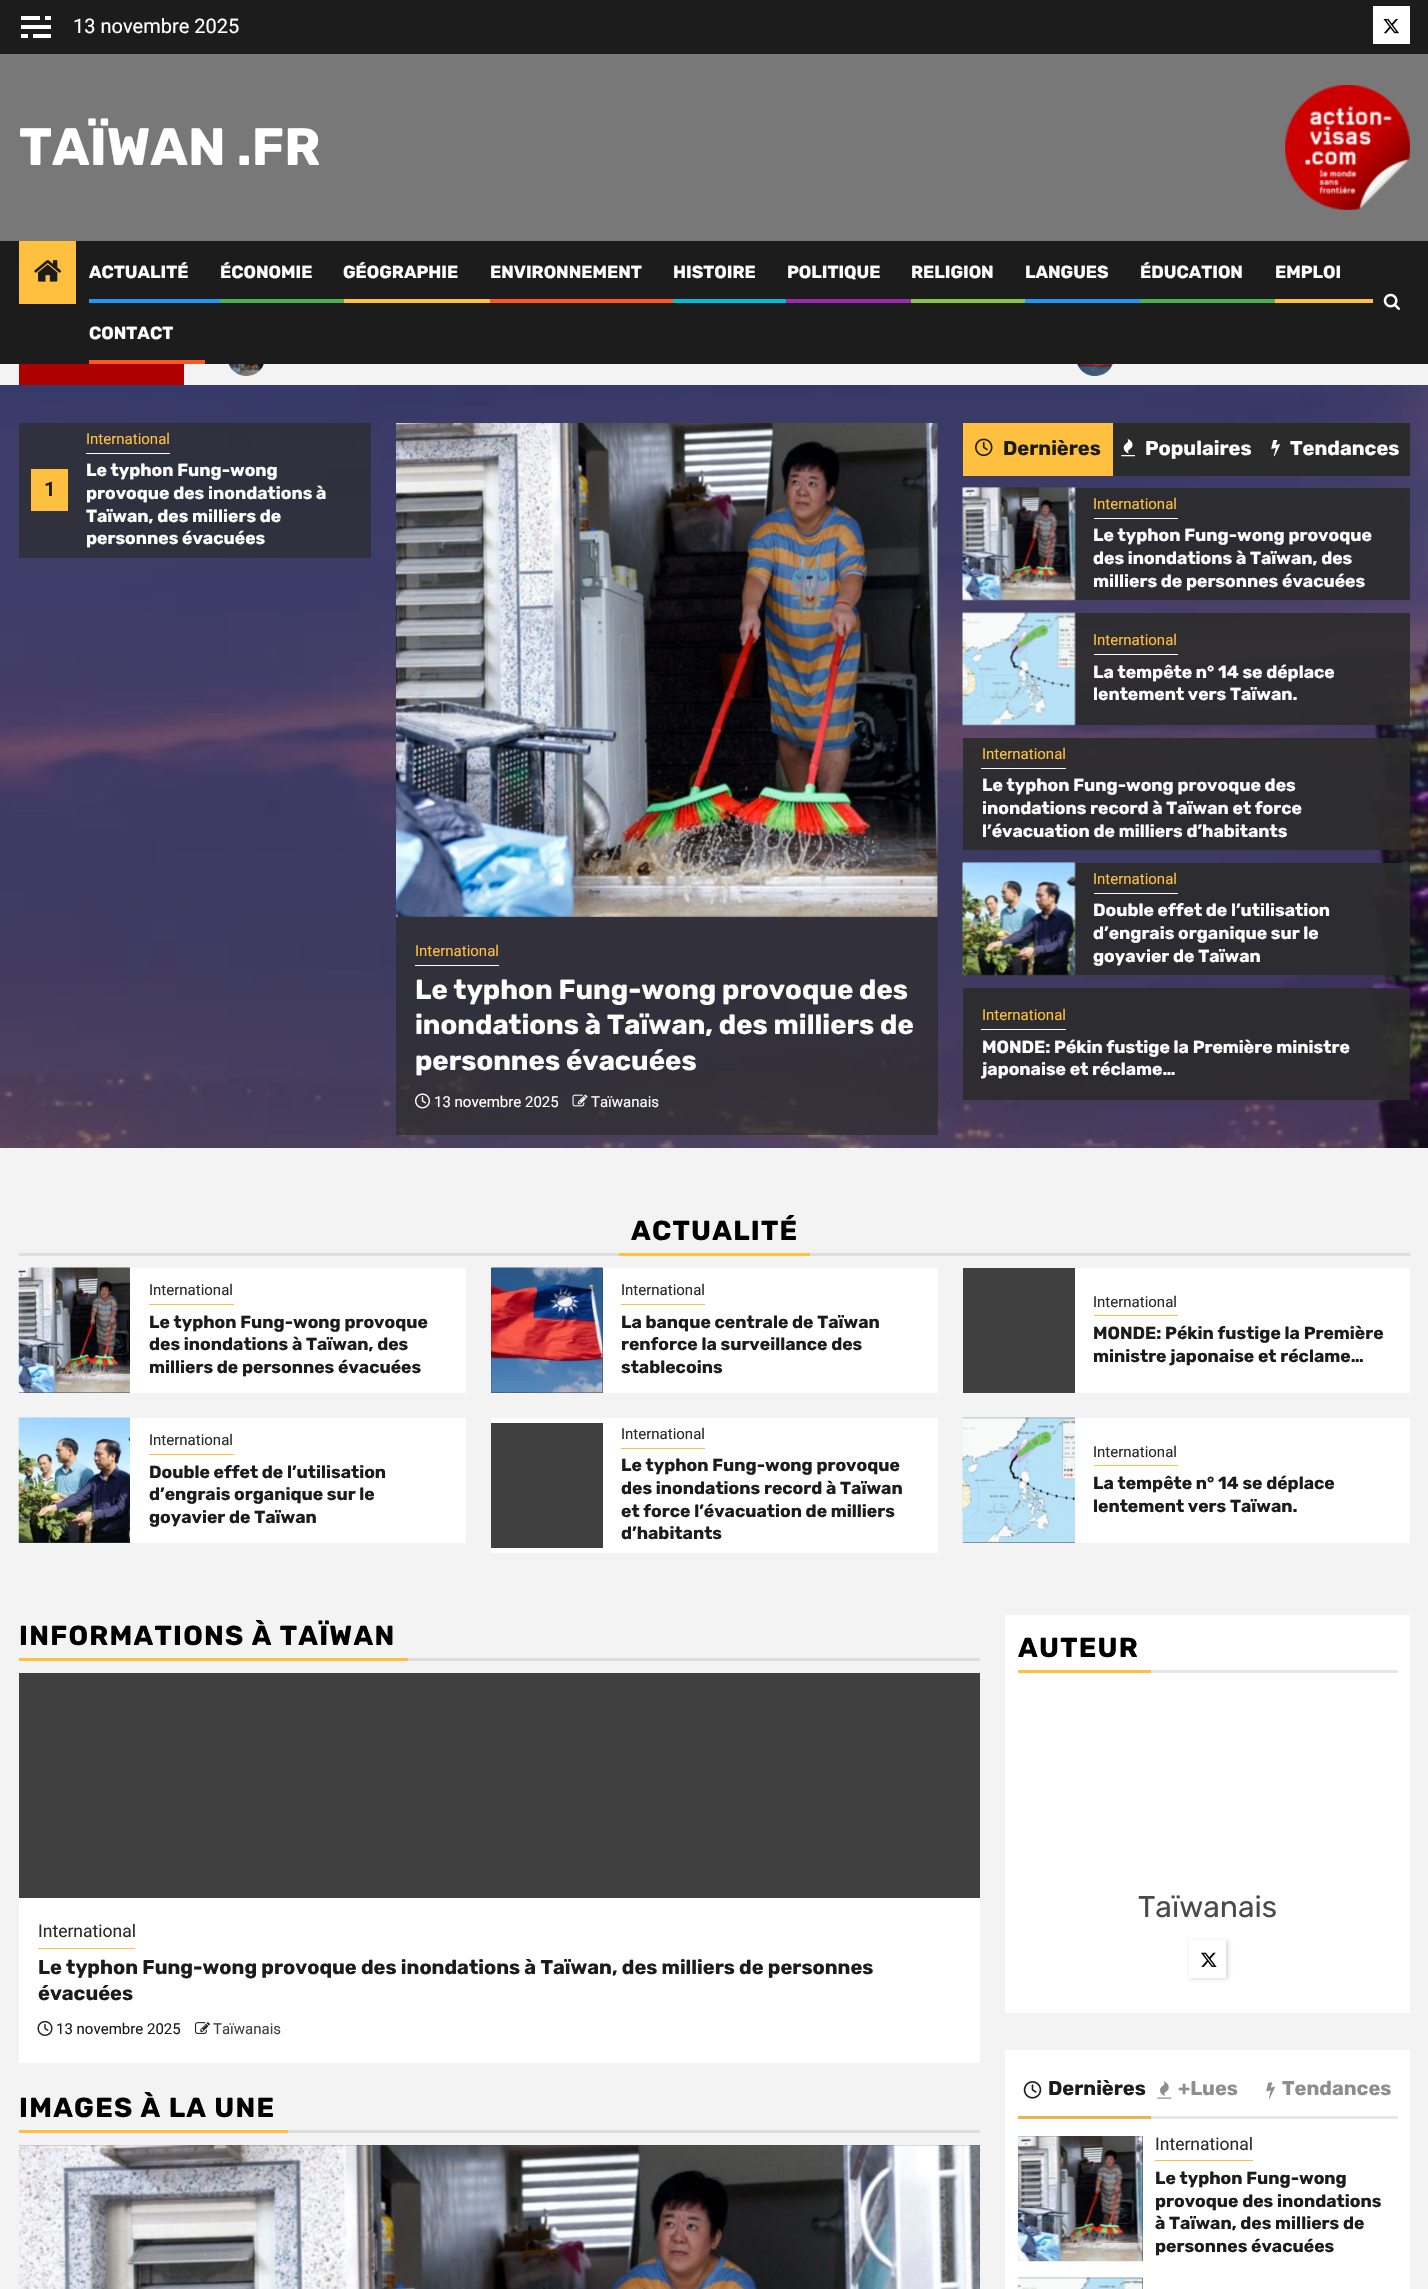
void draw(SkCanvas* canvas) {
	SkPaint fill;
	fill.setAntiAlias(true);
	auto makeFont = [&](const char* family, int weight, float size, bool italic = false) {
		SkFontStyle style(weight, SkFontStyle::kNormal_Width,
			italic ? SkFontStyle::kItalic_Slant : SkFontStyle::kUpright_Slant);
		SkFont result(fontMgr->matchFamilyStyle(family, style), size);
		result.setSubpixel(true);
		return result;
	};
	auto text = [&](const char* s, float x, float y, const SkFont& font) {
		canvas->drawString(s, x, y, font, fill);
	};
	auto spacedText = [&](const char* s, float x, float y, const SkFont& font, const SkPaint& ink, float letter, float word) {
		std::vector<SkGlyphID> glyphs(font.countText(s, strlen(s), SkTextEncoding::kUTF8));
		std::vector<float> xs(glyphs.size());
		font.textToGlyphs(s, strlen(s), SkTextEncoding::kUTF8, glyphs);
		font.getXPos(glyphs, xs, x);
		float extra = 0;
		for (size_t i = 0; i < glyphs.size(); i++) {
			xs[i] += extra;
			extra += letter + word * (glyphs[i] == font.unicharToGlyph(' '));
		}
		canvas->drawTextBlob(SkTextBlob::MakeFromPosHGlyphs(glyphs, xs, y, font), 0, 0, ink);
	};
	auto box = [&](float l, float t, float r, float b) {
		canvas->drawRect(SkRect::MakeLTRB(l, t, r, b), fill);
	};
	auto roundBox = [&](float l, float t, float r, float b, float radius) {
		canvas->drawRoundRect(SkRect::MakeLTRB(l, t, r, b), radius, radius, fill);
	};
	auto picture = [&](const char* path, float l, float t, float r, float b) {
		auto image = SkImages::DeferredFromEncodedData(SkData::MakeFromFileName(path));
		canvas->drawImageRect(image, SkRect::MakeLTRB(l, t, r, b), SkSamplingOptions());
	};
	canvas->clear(0xFFF3F3F3);
	fill.setColor(0xFF1C1C1C);
	box(0, 0, 1428, 54);
	fill.setColor(0xFFFFFFFF);
	box(45, 16, 51, 20);
	box(21, 16, 40, 20);
	box(21, 25, 51, 29);
	box(33, 34, 51, 38);
	box(21, 34, 28, 38);
	box(1373, 6, 1410, 44);
	picture("image0.png", 1383, 19, 1399, 34);
	fill.setColor(0xFF787878);
	box(0, 54, 1428, 241);
	picture("image1.png", 1285, 85, 1410, 210);
	picture("image4.png", 228, 364, 264, 376);
	fill.setColor(0x661C1C1C);
	canvas->drawCircle(246.5f, 357.5f, 18.5f, fill);
	picture("image5.png", 1077, 364, 1113, 377);
	roundBox(1076, 339, 1114, 376, 18.5f);
	fill.setColor(0xFF1C1C1C);
	box(0, 241, 1428, 364);
	fill.setColor(0xFFFFBF3F);
	box(19, 241, 76, 304);
	picture("image2.png", 34, 260, 62, 282);
	fill.setColor(0xFF2196F3);
	box(89, 299, 220, 303);
	fill.setColor(0xFF4CAF50);
	box(220, 299, 344, 303);
	fill.setColor(0xFFFFBF3F);
	box(344, 299, 490, 303);
	fill.setColor(0xFFFF5722);
	box(490, 299, 673, 303);
	fill.setColor(0xFF00BCD4);
	box(673, 299, 786, 303);
	fill.setColor(0xFF9C27B0);
	box(786, 299, 911, 303);
	fill.setColor(0xFF8BC34A);
	box(911, 299, 1025, 303);
	fill.setColor(0xFF2196F3);
	box(1025, 299, 1140, 303);
	fill.setColor(0xFF4CAF50);
	box(1140, 299, 1275, 303);
	fill.setColor(0xFFFFBF3F);
	box(1275, 299, 1373, 303);
	fill.setColor(0xFFFF5722);
	box(89, 360, 205, 364);
	picture("image3.png", 1383, 293, 1400, 310);
	fill.setColor(0xFFAF0000);
	box(19, 364, 184, 385);
	picture("image6.png", 0, 385, 1428, 1148);
	fill.setColor(0xB32B2B2B);
	box(19, 423, 371, 558);
	fill.setColor(0xFFFFBF3F);
	box(31, 469, 68, 511);
	fill.setColor(0xFFFFFFFF);
	box(86, 453, 170, 454);
	fill.setColor(0xFF404040);
	box(396, 423, 938, 916);
	fill.setColor(0xB32B2B2B);
	box(396, 916, 938, 1135);
	picture("image7.png", 396, 423, 938, 917);
	fill.setColor(0xFFFFFFFF);
	box(415, 965, 499, 966);
	picture("image8.png", 415, 1093, 430, 1109);
	picture("image9.png", 572, 1094, 588, 1107);
	fill.setColor(0xFFFFBF3F);
	box(963, 423, 1113, 476);
	picture("image10.png", 975, 438, 993, 457);
	fill.setColor(0xFF2B2B2B);
	box(1113, 423, 1410, 476);
	picture("image11.png", 1121, 438, 1135, 457);
	picture("image12.png", 1271, 440, 1280, 457);
	fill.setColor(0xB32B2B2B);
	box(1075, 488, 1410, 600);
	fill.setColor(0xFF404040);
	box(963, 488, 1075, 600);
	fill.setColor(0xB32B2B2B);
	box(1075, 488, 1410, 600);
	picture("image13.png", 962, 487, 1076, 601);
	fill.setColor(0xFFFFFFFF);
	box(1094, 518, 1178, 519);
	fill.setColor(0xB32B2B2B);
	box(1075, 613, 1410, 725);
	fill.setColor(0xFF404040);
	box(963, 613, 1075, 725);
	fill.setColor(0xB32B2B2B);
	box(1075, 613, 1410, 725);
	picture("image14.png", 962, 612, 1076, 726);
	fill.setColor(0xFFFFFFFF);
	box(1094, 654, 1178, 655);
	fill.setColor(0xB32B2B2B);
	box(963, 738, 1410, 850);
	box(963, 738, 1410, 850);
	fill.setColor(0xFFFFFFFF);
	box(981, 768, 1066, 769);
	fill.setColor(0xB32B2B2B);
	box(1075, 863, 1410, 975);
	fill.setColor(0xFF404040);
	box(963, 863, 1075, 975);
	fill.setColor(0xB32B2B2B);
	box(1075, 863, 1410, 975);
	picture("image15.png", 962, 862, 1076, 976);
	fill.setColor(0xFFFFFFFF);
	box(1094, 893, 1178, 894);
	fill.setColor(0xB32B2B2B);
	box(963, 988, 1410, 1100);
	box(963, 988, 1410, 1100);
	fill.setColor(0xFFFFFFFF);
	box(981, 1029, 1066, 1030);
	fill.setColor(0xFFDEDEDE);
	box(19, 1253, 1410, 1256);
	fill.setColor(0xFFFFBF3F);
	box(619, 1253, 810, 1256);
	fill.setColor(0xFFFFFFFF);
	box(130, 1268, 466, 1393);
	fill.setColor(0xFF404040);
	box(19, 1392, 130, 1393);
	picture("image16.png", 18, 1267, 130, 1393);
	fill.setColor(0xFFFFBF3F);
	box(149, 1304, 234, 1305);
	fill.setColor(0xFFFFFFFF);
	box(603, 1268, 938, 1393);
	fill.setColor(0xFF404040);
	box(491, 1268, 603, 1393);
	picture("image17.png", 491, 1267, 603, 1393);
	fill.setColor(0xFFFFBF3F);
	box(621, 1304, 705, 1305);
	fill.setColor(0xFFFFFFFF);
	box(1075, 1268, 1410, 1393);
	fill.setColor(0xFF404040);
	box(963, 1268, 1075, 1393);
	fill.setColor(0xFFFFBF3F);
	box(1094, 1315, 1178, 1316);
	fill.setColor(0xFFFFFFFF);
	box(130, 1418, 466, 1543);
	fill.setColor(0xFF404040);
	box(19, 1542, 130, 1543);
	picture("image18.png", 18, 1417, 130, 1543);
	fill.setColor(0xFFFFBF3F);
	box(149, 1454, 234, 1455);
	fill.setColor(0xFFFFFFFF);
	box(491, 1418, 938, 1553);
	fill.setColor(0xFF404040);
	box(491, 1423, 603, 1548);
	fill.setColor(0xFFFFBF3F);
	box(621, 1448, 705, 1449);
	fill.setColor(0xFFFFFFFF);
	box(1075, 1418, 1410, 1543);
	fill.setColor(0xFF404040);
	box(963, 1542, 1075, 1543);
	picture("image19.png", 962, 1417, 1075, 1543);
	fill.setColor(0xFFFFBF3F);
	box(1094, 1465, 1178, 1466);
	box(19, 1658, 408, 1661);
	fill.setColor(0xFFDEDEDE);
	box(408, 1658, 980, 1661);
	fill.setColor(0xFFFFFFFF);
	box(19, 1898, 980, 2063);
	fill.setColor(0xFF404040);
	box(19, 1673, 980, 1898);
	fill.setColor(0xFFFFBF3F);
	box(38, 1948, 135, 1949);
	picture("image20.png", 37, 2021, 53, 2036);
	picture("image21.png", 195, 2022, 210, 2034);
	box(19, 2130, 288, 2133);
	fill.setColor(0xFFDEDEDE);
	box(288, 2130, 980, 2133);
	fill.setColor(0xFF404040);
	box(19, 2145, 980, 2289);
	picture("image22.png", 19, 2145, 980, 2289);
	fill.setColor(0xFFFFFFFF);
	box(1005, 1615, 1410, 2013);
	fill.setColor(0xFFFFBF3F);
	box(1018, 1670, 1151, 1673);
	fill.setColor(0xFFE7E7E7);
	box(1151, 1670, 1398, 1673);
	fill.setColor(0x26000000);
	fill.setMaskFilter(SkMaskFilter::MakeBlur(kNormal_SkBlurStyle, 2));
	canvas->drawRect(SkRect::MakeLTRB(1190, 1941, 1228, 1979), fill);
	fill.setMaskFilter(nullptr);
	fill.setColor(0xFFFFFFFF);
	box(1189, 1940, 1226, 1978);
	picture("image23.png", 1201, 1952, 1217, 1967);
	box(1005, 2050, 1410, 2289);
	fill.setColor(0xFFE7E7E7);
	box(1151, 2116, 1398, 2119);
	fill.setColor(0xFFE7B44E);
	box(1018, 2116, 1151, 2119);
	picture("image24.png", 1023, 2081, 1042, 2099);
	picture("image25.png", 1157, 2081, 1172, 2099);
	picture("image26.png", 1266, 2082, 1275, 2099);
	fill.setColor(0xFF404040);
	box(1018, 2136, 1143, 2261);
	picture("image27.png", 1018, 2136, 1143, 2262);
	fill.setColor(0xFFFFBF3F);
	box(1155, 2160, 1253, 2161);
	fill.setColor(0xFF404040);
	box(1142, 2278, 1143, 2289);
	picture("image28.png", 1018, 2277, 1143, 2289);
	auto font1 = makeFont("Roboto", 400, 20);
	fill.setColor(0xFFFFFFFF);
	text("13 novembre 2025", 73, 33, font1);
	auto font2 = makeFont("Rubik", 700, 52.5f);
	text("TAÏWAN .FR", 19, 165, font2);
	auto font3 = makeFont("Rubik", 700, 17.5f);
	text("ACTUALITÉ", 89, 278, font3);
	text("ÉCONOMIE", 220, 278, font3);
	text("GÉOGRAPHIE", 343, 278, font3);
	text("ENVIRONNEMENT", 490, 278, font3);
	text("HISTOIRE", 673, 278, font3);
	text("POLITIQUE", 787, 278, font3);
	text("RELIGION", 911, 278, font3);
	text("LANGUES", 1025, 278, font3);
	text("ÉDUCATION", 1140, 278, font3);
	text("EMPLOI", 1275, 278, font3);
	text("CONTACT", 89, 339, font3);
	auto font4 = makeFont("Roboto", 700, 20);
	fill.setColor(0xFF1C1C1C);
	text("1", 44, 496, font4);
	auto font5 = makeFont("Roboto", 400, 15);
	fill.setColor(0xFFFFBF3F);
	text("International", 86, 444, font5);
	fill.setColor(0xFFFFFFFF);
	text("Le typhon Fung-wong", 86, 476, font3);
	text("provoque des inondations à", 86, 499, font3);
	text("Taïwan, des milliers de", 86, 522, font3);
	text("personnes évacuées", 86, 544, font3);
	fill.setColor(0xFFFFBF3F);
	text("International", 415, 956, font5);
	auto font6 = makeFont("Rubik", 700, 27.5f);
	fill.setColor(0xFFFFFFFF);
	text("Le typhon Fung-wong provoque des", 415, 999, font6);
	text("inondations à Taïwan, des milliers de", 415, 1034, font6);
	text("personnes évacuées", 415, 1070, font6);
	text("13 novembre 2025", 434, 1107, font5);
	text("Taïwanais", 591, 1107, font5);
	auto font7 = makeFont("Rubik", 700, 20);
	fill.setColor(0xFF1C1C1C);
	text("Dernières", 1003, 455, font7);
	fill.setColor(0xFFFFFFFF);
	text("Populaires", 1145, 455, font7);
	text("Tendances", 1290, 455, font7);
	fill.setColor(0xFFFFBF3F);
	text("International", 1093, 509, font5);
	fill.setColor(0xFFFFFFFF);
	text("Le typhon Fung-wong provoque", 1093, 541, font3);
	text("des inondations à Taïwan, des", 1093, 564, font3);
	text("milliers de personnes évacuées", 1093, 587, font3);
	fill.setColor(0xFFFFBF3F);
	text("International", 1093, 645, font5);
	fill.setColor(0xFFFFFFFF);
	text("La tempête n° 14 se déplace", 1093, 678, font3);
	text("lentement vers Taïwan.", 1093, 700, font3);
	fill.setColor(0xFFFFBF3F);
	text("International", 982, 759, font5);
	fill.setColor(0xFFFFFFFF);
	text("Le typhon Fung-wong provoque des", 982, 791, font3);
	text("inondations record à Taïwan et force", 982, 814, font3);
	text("l’évacuation de milliers d’habitants", 982, 837, font3);
	fill.setColor(0xFFFFBF3F);
	text("International", 1093, 884, font5);
	fill.setColor(0xFFFFFFFF);
	text("Double effet de l’utilisation", 1093, 916, font3);
	text("d’engrais organique sur le", 1093, 939, font3);
	text("goyavier de Taïwan", 1093, 962, font3);
	fill.setColor(0xFFFFBF3F);
	text("International", 982, 1020, font5);
	fill.setColor(0xFFFFFFFF);
	text("MONDE: Pékin fustige la Première ministre", 982, 1053, font3);
	text("japonaise et réclame…", 982, 1075, font3);
	fill.setColor(0xFF000000);
	spacedText("ACTUALITÉ", 631, 1240, font6, fill, 1.25f, 0);
	fill.setColor(0xFF2B2B2B);
	text("International", 149, 1295, font5);
	fill.setColor(0xFF1C1C1C);
	text("Le typhon Fung-wong provoque", 149, 1328, font3);
	text("des inondations à Taïwan, des", 149, 1350, font3);
	text("milliers de personnes évacuées", 149, 1373, font3);
	fill.setColor(0xFF2B2B2B);
	text("International", 621, 1295, font5);
	fill.setColor(0xFF1C1C1C);
	text("La banque centrale de Taïwan", 621, 1328, font3);
	text("renforce la surveillance des", 621, 1350, font3);
	text("stablecoins", 621, 1373, font3);
	fill.setColor(0xFF2B2B2B);
	text("International", 1093, 1307, font5);
	fill.setColor(0xFF1C1C1C);
	text("MONDE: Pékin fustige la Première", 1093, 1339, font3);
	text("ministre japonaise et réclame…", 1093, 1362, font3);
	fill.setColor(0xFF2B2B2B);
	text("International", 149, 1445, font5);
	fill.setColor(0xFF1C1C1C);
	text("Double effet de l’utilisation", 149, 1478, font3);
	text("d’engrais organique sur le", 149, 1500, font3);
	text("goyavier de Taïwan", 149, 1523, font3);
	fill.setColor(0xFF2B2B2B);
	text("International", 621, 1439, font5);
	fill.setColor(0xFF1C1C1C);
	text("Le typhon Fung-wong provoque", 621, 1471, font3);
	text("des inondations record à Taïwan", 621, 1494, font3);
	text("et force l’évacuation de milliers", 621, 1517, font3);
	text("d’habitants", 621, 1539, font3);
	fill.setColor(0xFF2B2B2B);
	text("International", 1093, 1457, font5);
	fill.setColor(0xFF1C1C1C);
	text("La tempête n° 14 se déplace", 1093, 1489, font3);
	text("lentement vers Taïwan.", 1093, 1512, font3);
	fill.setColor(0xFF000000);
	spacedText("INFORMATIONS À TAÏWAN", 19, 1645, font6, fill, 1.25f, 0);
	auto font8 = makeFont("Roboto", 400, 17.5f);
	fill.setColor(0xFF2B2B2B);
	text("International", 38, 1937, font8);
	fill.setColor(0xFF1C1C1C);
	text("Le typhon Fung-wong provoque des inondations à Taïwan, des milliers de personnes", 38, 1974, font7);
	text("évacuées", 38, 2000, font7);
	text("13 novembre 2025", 56, 2034, font5);
	fill.setColor(0xFF404040);
	text("Taïwanais", 213, 2034, font5);
	fill.setColor(0xFF000000);
	spacedText("IMAGES À LA UNE", 19, 2117, font6, fill, 1.25f, 0);
	spacedText("AUTEUR", 1018, 1657, font6, fill, 1.25f, 0);
	auto font9 = makeFont("Rubik", 400, 30);
	fill.setColor(0xFF4A4A4A);
	text("Taïwanais", 1138, 1917, font9);
	fill.setColor(0xFF1C1C1C);
	text("Dernières", 1048, 2095, font7);
	fill.setColor(0xFF8E8E8E);
	text("+Lues", 1178, 2095, font7);
	text("Tendances", 1282, 2095, font7);
	fill.setColor(0xFF2B2B2B);
	text("International", 1155, 2150, font8);
	fill.setColor(0xFF1C1C1C);
	text("Le typhon Fung-wong", 1155, 2184, font3);
	text("provoque des inondations", 1155, 2207, font3);
	text("à Taïwan, des milliers de", 1155, 2229, font3);
	text("personnes évacuées", 1155, 2252, font3);
}
